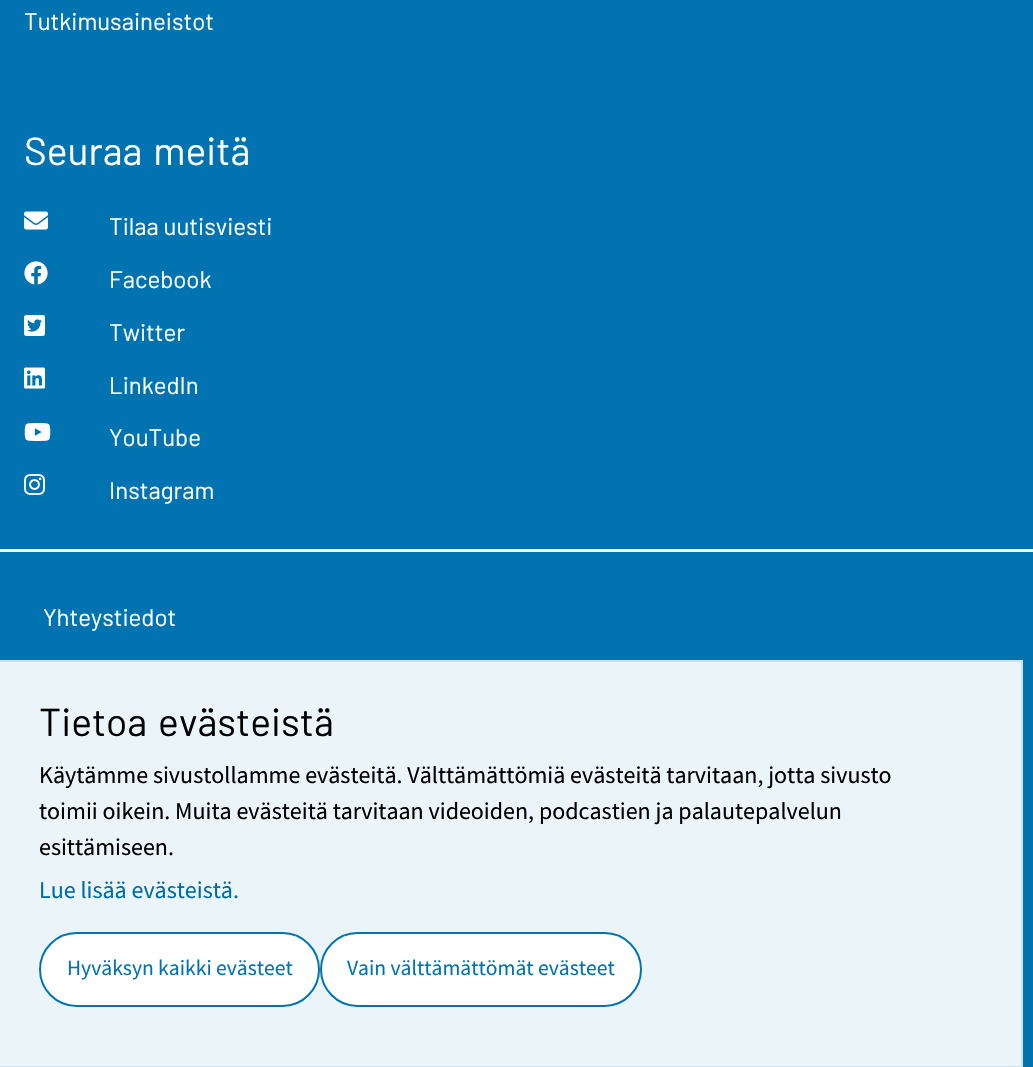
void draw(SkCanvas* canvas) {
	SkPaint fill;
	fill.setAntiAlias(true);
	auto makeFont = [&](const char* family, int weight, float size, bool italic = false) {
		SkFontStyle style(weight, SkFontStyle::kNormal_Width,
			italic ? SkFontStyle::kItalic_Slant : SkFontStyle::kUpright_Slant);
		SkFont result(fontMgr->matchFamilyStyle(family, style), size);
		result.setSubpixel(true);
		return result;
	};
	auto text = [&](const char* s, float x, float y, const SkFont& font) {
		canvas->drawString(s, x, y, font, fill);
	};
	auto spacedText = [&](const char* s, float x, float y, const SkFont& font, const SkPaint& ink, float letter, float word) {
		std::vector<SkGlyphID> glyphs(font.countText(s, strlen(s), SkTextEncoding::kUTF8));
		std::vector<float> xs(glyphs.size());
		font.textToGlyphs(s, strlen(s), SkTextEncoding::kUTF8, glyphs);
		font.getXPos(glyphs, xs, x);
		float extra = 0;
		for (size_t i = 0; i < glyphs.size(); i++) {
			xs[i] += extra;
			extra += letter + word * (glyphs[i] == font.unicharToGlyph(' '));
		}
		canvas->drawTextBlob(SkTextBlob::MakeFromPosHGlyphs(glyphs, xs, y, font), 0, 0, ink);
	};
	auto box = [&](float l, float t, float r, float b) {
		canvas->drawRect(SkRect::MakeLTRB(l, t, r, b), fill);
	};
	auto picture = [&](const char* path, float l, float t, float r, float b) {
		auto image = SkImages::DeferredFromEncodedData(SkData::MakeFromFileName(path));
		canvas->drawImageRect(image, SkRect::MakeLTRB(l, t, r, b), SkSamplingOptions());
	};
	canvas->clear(0xFF0073B0);
	picture("image0.png", 24, 211, 48, 230);
	picture("image1.png", 24, 261, 48, 285);
	picture("image2.png", 24, 315, 45, 336);
	picture("image3.png", 24, 367, 45, 389);
	picture("image4.png", 24, 423, 51, 441);
	picture("image5.png", 24, 474, 45, 495);
	fill.setColor(0xFFFFFFFF);
	box(0, 549, 1033, 552);
	fill.setColor(0xFFEBF4F9);
	canvas->drawRect(SkRect::MakeLTRB(-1, 661, 1022, 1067), fill);
	fill.setStyle(SkPaint::kStroke_Style);
	fill.setStrokeWidth(2);
	fill.setColor(0xFFCCE3EF);
	canvas->drawRect(SkRect::MakeLTRB(-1, 661, 1022, 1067), fill);
	fill.setStyle(SkPaint::kFill_Style);
	fill.setColor(0xFFFFFFFF);
	canvas->drawRoundRect(SkRect::MakeLTRB(40, 933, 319, 1006), 36.5f, 36.5f, fill);
	fill.setStyle(SkPaint::kStroke_Style);
	fill.setColor(0xFF0073B0);
	canvas->drawRoundRect(SkRect::MakeLTRB(40, 933, 319, 1006), 36.5f, 36.5f, fill);
	fill.setStyle(SkPaint::kFill_Style);
	fill.setColor(0xFFFFFFFF);
	canvas->drawRoundRect(SkRect::MakeLTRB(321, 933, 641, 1006), 36.5f, 36.5f, fill);
	fill.setStyle(SkPaint::kStroke_Style);
	fill.setColor(0xFF0073B0);
	canvas->drawRoundRect(SkRect::MakeLTRB(321, 933, 641, 1006), 36.5f, 36.5f, fill);
	auto font1 = makeFont("Barlow", 400, 24);
	fill.setStyle(SkPaint::kFill_Style);
	fill.setColor(0xFFFFFFFF);
	text("Tutkimusaineistot", 24, 30, font1);
	auto font2 = makeFont("Barlow", 400, 39);
	spacedText("Seuraa meitä", 24, 165, font2, fill, 0, 3);
	text("Tilaa uutisviesti", 109, 235, font1);
	text("Facebook", 109, 288, font1);
	text("Twitter", 109, 341, font1);
	text("LinkedIn", 109, 394, font1);
	text("YouTube", 109, 446, font1);
	text("Instagram", 109, 499, font1);
	text("Yhteystiedot", 43, 626, font1);
	fill.setColor(0xFF000000);
	spacedText("Tietoa evästeistä", 39, 736, font2, fill, 0, 3);
	auto font3 = makeFont("Source Sans Pro", 400, 24);
	text("Käytämme sivustollamme evästeitä. Välttämättömiä evästeitä tarvitaan, jotta sivusto", 39, 783, font3);
	text("toimii oikein. Muita evästeitä tarvitaan videoiden, podcastien ja palautepalvelun", 39, 819, font3);
	text("esittämiseen.", 39, 855, font3);
	fill.setColor(0xFF006CA5);
	text("Lue lisää evästeistä.", 39, 898, font3);
	auto font4 = makeFont("Source Sans Pro", 400, 21.6f);
	fill.setColor(0xFF0073B0);
	text("Hyväksyn kaikki evästeet", 67, 975, font4);
	text("Vain välttämättömät evästeet", 347, 975, font4);
}
